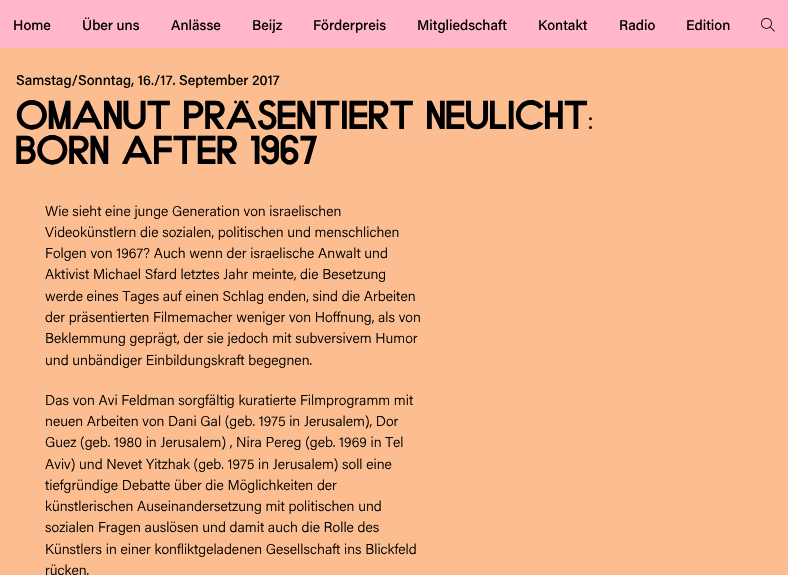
void draw(SkCanvas* canvas) {
	SkPaint fill;
	fill.setAntiAlias(true);
	auto makeFont = [&](const char* family, int weight, float size, bool italic = false) {
		SkFontStyle style(weight, SkFontStyle::kNormal_Width,
			italic ? SkFontStyle::kItalic_Slant : SkFontStyle::kUpright_Slant);
		SkFont result(fontMgr->matchFamilyStyle(family, style), size);
		result.setSubpixel(true);
		return result;
	};
	auto text = [&](const char* s, float x, float y, const SkFont& font) {
		canvas->drawString(s, x, y, font, fill);
	};
	auto spacedText = [&](const char* s, float x, float y, const SkFont& font, const SkPaint& ink, float letter, float word) {
		std::vector<SkGlyphID> glyphs(font.countText(s, strlen(s), SkTextEncoding::kUTF8));
		std::vector<float> xs(glyphs.size());
		font.textToGlyphs(s, strlen(s), SkTextEncoding::kUTF8, glyphs);
		font.getXPos(glyphs, xs, x);
		float extra = 0;
		for (size_t i = 0; i < glyphs.size(); i++) {
			xs[i] += extra;
			extra += letter + word * (glyphs[i] == font.unicharToGlyph(' '));
		}
		canvas->drawTextBlob(SkTextBlob::MakeFromPosHGlyphs(glyphs, xs, y, font), 0, 0, ink);
	};
	auto box = [&](float l, float t, float r, float b) {
		canvas->drawRect(SkRect::MakeLTRB(l, t, r, b), fill);
	};
	auto picture = [&](const char* path, float l, float t, float r, float b) {
		auto image = SkImages::DeferredFromEncodedData(SkData::MakeFromFileName(path));
		canvas->drawImageRect(image, SkRect::MakeLTRB(l, t, r, b), SkSamplingOptions());
	};
	canvas->clear(0xFFFCBE91);
	fill.setColor(0xFFFFB7C9);
	box(0, 0, 788, 48);
	picture("image0.png", 761, 17, 775, 32);
	auto font1 = makeFont("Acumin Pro", 500, 14.2f);
	fill.setColor(0xFF000000);
	text("Home", 13, 30, font1);
	text("Über uns", 82, 30, font1);
	text("Anlässe", 171, 30, font1);
	text("Beijz", 252, 30, font1);
	text("Förderpreis", 313, 30, font1);
	text("Mitgliedschaft", 417, 30, font1);
	text("Kontakt", 538, 30, font1);
	text("Radio", 619, 30, font1);
	text("Edition", 686, 30, font1);
	text("Samstag/Sonntag, 16./17. September 2017", 16, 85, font1);
	auto font2 = makeFont("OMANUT", 400, 39.5f);
	spacedText("OMANUT präsentiert NeuLicht:", 16, 129, font2, fill, 0.4f, 0);
	spacedText("Born After 1967", 16, 164, font2, fill, 0.4f, 0);
	auto font3 = makeFont("Acumin Pro", 300, 14.2f);
	text("Wie sieht eine junge Generation von israelischen", 45, 216, font3);
	text("Videokünstlern die sozialen, politischen und menschlichen", 45, 237, font3);
	text("Folgen von 1967? Auch wenn der israelische Anwalt und", 45, 258, font3);
	text("Aktivist Michael Sfard letztes Jahr meinte, die Besetzung", 45, 279, font3);
	text("werde eines Tages auf einen Schlag enden, sind die Arbeiten", 45, 301, font3);
	text("der präsentierten Filmemacher weniger von Hoffnung, als von", 45, 322, font3);
	text("Beklemmung geprägt, der sie jedoch mit subversivem Humor", 45, 343, font3);
	text("und unbändiger Einbildungskraft begegnen.", 45, 365, font3);
	text("Das von Avi Feldman sorgfältig kuratierte Filmprogramm mit", 45, 405, font3);
	text("neuen Arbeiten von Dani Gal (geb. 1975 in Jerusalem), Dor", 45, 426, font3);
	text("Guez (geb. 1980 in Jerusalem) , Nira Pereg (geb. 1969 in Tel", 45, 447, font3);
	text("Aviv) und Nevet Yitzhak (geb. 1975 in Jerusalem) soll eine", 45, 469, font3);
	text("tiefgründige Debatte über die Möglichkeiten der", 45, 490, font3);
	text("künstlerischen Auseinandersetzung mit politischen und", 45, 511, font3);
	text("sozialen Fragen auslösen und damit auch die Rolle des", 45, 532, font3);
	text("Künstlers in einer konfliktgeladenen Gesellschaft ins Blickfeld", 45, 554, font3);
	text("rücken.", 45, 575, font3);
}
